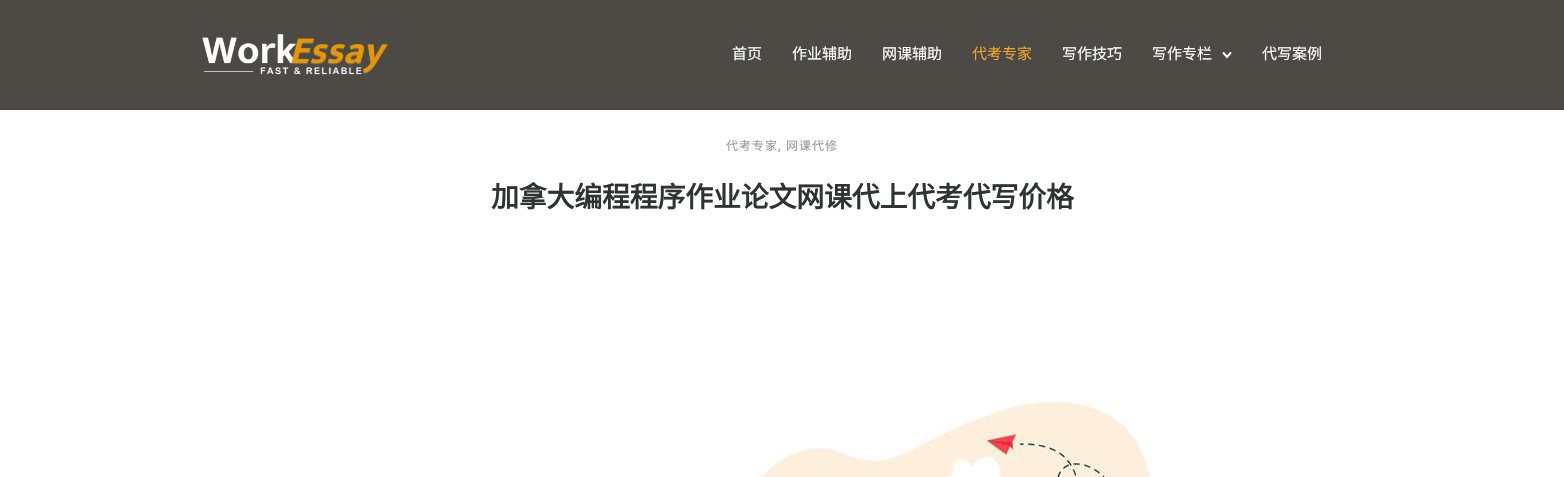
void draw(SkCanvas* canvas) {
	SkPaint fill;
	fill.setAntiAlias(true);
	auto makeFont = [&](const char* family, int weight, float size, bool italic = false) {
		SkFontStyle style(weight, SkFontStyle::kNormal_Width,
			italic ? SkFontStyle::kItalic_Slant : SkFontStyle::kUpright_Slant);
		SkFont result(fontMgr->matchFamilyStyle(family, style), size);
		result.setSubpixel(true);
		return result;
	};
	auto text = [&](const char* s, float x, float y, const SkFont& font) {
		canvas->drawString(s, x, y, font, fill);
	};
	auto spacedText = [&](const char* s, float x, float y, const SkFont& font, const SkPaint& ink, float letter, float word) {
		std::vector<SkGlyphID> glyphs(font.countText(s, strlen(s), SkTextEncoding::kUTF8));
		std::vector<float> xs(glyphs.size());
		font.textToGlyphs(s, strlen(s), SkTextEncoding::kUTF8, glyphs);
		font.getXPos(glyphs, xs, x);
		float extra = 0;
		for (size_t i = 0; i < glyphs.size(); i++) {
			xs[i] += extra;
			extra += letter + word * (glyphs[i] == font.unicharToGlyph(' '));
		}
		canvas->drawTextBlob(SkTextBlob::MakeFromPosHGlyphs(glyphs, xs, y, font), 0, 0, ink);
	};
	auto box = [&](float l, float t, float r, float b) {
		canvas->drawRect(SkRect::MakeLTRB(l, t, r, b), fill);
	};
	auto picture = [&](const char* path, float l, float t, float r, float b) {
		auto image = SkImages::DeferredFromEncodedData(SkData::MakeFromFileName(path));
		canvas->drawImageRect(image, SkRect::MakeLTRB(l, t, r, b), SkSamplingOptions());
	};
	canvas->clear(0xFFFFFFFF);
	fill.setColor(0xFF4D4944);
	box(0, 0, 1564, 110);
	picture("image0.png", 202, 34, 388, 75);
	fill.setStyle(SkPaint::kStroke_Style);
	fill.setStrokeWidth(2);
	fill.setStrokeCap(SkPaint::kRound_Cap);
	fill.setColor(0xFFFFFFFF);
	canvas->drawPath(SkPathBuilder().moveTo(1230.5f, 53).lineTo(1227, 57).lineTo(1223.5f, 53).detach(), fill);
	picture("image1.png", 753, 399, 1151, 477);
	auto font1 = makeFont("Noto Sans CJK SC", 400, 15);
	fill.setStyle(SkPaint::kFill_Style);
	text("首页", 732, 59, font1);
	text("作业辅助", 792, 59, font1);
	text("网课辅助", 882, 59, font1);
	fill.setColor(0xFFECA72F);
	text("代考专家", 972, 59, font1);
	fill.setColor(0xFFFFFFFF);
	text("写作技巧", 1062, 59, font1);
	text("写作专栏", 1152, 59, font1);
	text("代写案例", 1262, 59, font1);
	auto font2 = makeFont("Noto Sans CJK SC", 400, 12);
	fill.setColor(0xFF989999);
	spacedText("代考专家", 726, 150, font2, fill, 1, 0);
	auto font3 = makeFont("Roboto", 500, 12);
	spacedText(",", 778, 150, font3, fill, 1, 0);
	spacedText("网课代修", 786, 150, font2, fill, 1, 0);
	auto font4 = makeFont("Noto Sans CJK SC", 700, 28);
	fill.setColor(0xFF313233);
	spacedText("加拿大编程程序作业论文网课代上代考代写价格", 491, 207, font4, fill, -0.25f, 0);
}
